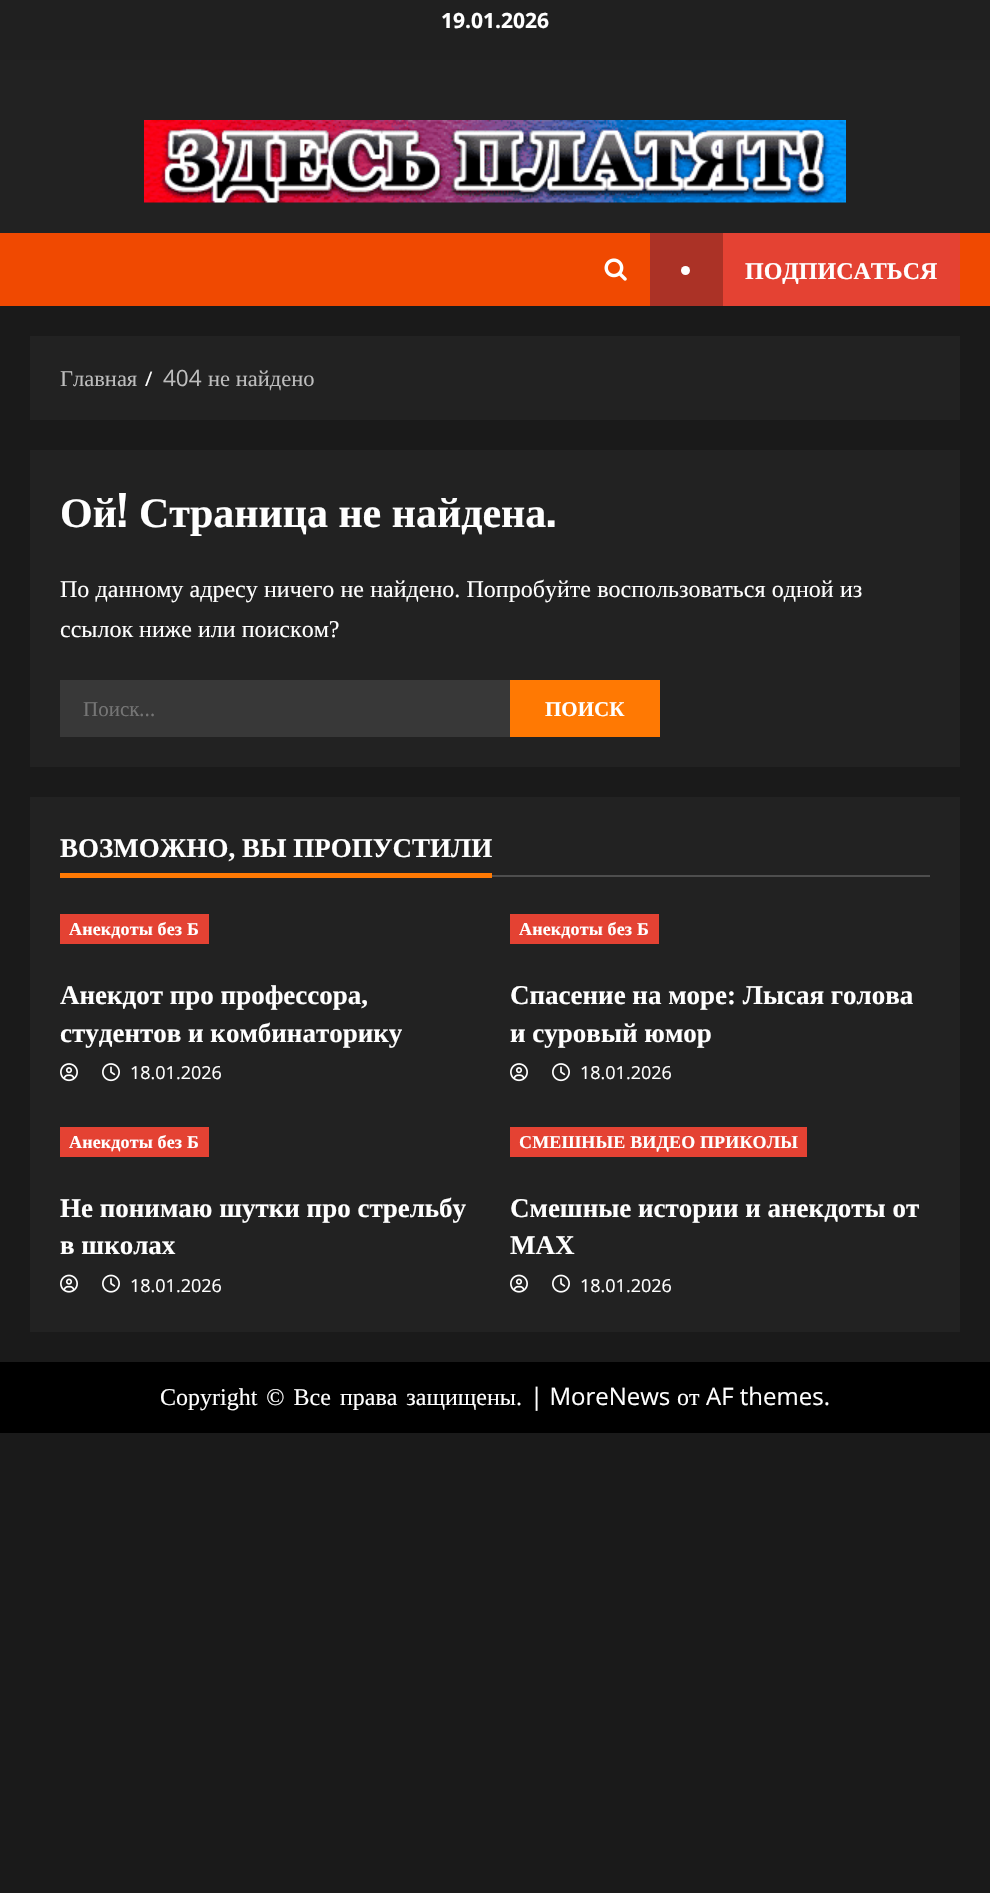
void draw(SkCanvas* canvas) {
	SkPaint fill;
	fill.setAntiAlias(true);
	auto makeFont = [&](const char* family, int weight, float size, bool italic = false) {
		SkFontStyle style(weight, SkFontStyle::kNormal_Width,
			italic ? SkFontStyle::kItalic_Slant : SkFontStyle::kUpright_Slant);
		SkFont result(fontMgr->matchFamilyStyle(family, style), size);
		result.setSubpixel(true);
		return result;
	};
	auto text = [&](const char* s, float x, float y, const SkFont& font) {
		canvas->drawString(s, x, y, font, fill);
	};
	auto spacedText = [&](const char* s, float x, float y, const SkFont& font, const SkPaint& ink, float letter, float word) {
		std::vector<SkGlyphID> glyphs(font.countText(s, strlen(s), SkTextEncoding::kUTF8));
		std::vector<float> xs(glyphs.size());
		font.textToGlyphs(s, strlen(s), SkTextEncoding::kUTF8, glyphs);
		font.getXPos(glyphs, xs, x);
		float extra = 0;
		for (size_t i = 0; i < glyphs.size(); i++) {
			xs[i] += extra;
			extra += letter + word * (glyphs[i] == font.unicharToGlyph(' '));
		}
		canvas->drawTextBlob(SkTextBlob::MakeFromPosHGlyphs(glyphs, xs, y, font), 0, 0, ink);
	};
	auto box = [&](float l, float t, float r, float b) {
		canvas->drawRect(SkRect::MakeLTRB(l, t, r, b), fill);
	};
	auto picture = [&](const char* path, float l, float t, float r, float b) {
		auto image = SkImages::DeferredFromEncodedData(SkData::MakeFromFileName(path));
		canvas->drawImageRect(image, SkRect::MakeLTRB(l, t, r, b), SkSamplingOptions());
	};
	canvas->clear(0xFF1A1A1A);
	fill.setColor(0xFF202020);
	box(0, 0, 990, 60);
	fill.setColor(0xFF222222);
	box(0, 60, 990, 233);
	picture("image0.png", 144, 120, 846, 203);
	fill.setColor(0xFFF04901);
	box(0, 233, 990, 306);
	picture("image1.png", 604, 258, 627, 281);
	fill.setColor(0xFFE44233);
	box(723, 233, 960, 306);
	fill.setColor(0xFFAB3226);
	box(650, 233, 723, 306);
	fill.setColor(0xFFFFFFFF);
	canvas->drawCircle(685.5f, 270.5f, 4.5f, fill);
	fill.setColor(0xFF222222);
	box(30, 336, 960, 420);
	box(30, 450, 960, 767);
	fill.setColor(0xFF383838);
	box(60, 680, 510, 737);
	fill.setColor(0xFFFF7903);
	box(510, 680, 660, 737);
	fill.setColor(0xFF222222);
	box(30, 797, 960, 1332);
	fill.setColor(0xFF4E4E4E);
	box(492, 875, 930, 877);
	fill.setColor(0xFFFF7903);
	box(60, 873, 492, 878);
	fill.setColor(0xFFE44233);
	box(60, 914, 209, 944);
	picture("image2.png", 60, 1063, 78, 1082);
	picture("image3.png", 102, 1063, 120, 1082);
	box(510, 914, 659, 944);
	picture("image2.png", 510, 1063, 528, 1082);
	picture("image3.png", 552, 1063, 570, 1082);
	box(60, 1127, 209, 1157);
	picture("image4.png", 60, 1274, 78, 1293);
	picture("image5.png", 102, 1274, 120, 1293);
	box(510, 1127, 807, 1157);
	picture("image4.png", 510, 1274, 528, 1293);
	picture("image5.png", 552, 1274, 570, 1293);
	fill.setColor(0xFF000000);
	box(0, 1362, 990, 1433);
	auto font1 = makeFont("Open Sans", 700, 21);
	fill.setColor(0xFFFFFFFF);
	text("19.01.2026", 441, 28, font1);
	auto font2 = makeFont("Liberation Serif", 700, 24);
	text("ПОДПИСАТЬСЯ", 745, 279, font2);
	auto font3 = makeFont("Liberation Serif", 400, 22.5f);
	fill.setColor(0xFFBDBDBD);
	text("Главная", 60, 386, font3);
	auto font4 = makeFont("Open Sans", 400, 20);
	fill.setColor(0xFFFFFFFF);
	text("/", 145, 386, font4);
	auto font5 = makeFont("Open Sans", 400, 22.5f);
	fill.setColor(0xFFBDBDBD);
	text("404", 163, 386, font5);
	text("не найдено", 208, 386, font3);
	auto font6 = makeFont("Liberation Serif", 700, 42);
	fill.setColor(0xFFFFFFFF);
	text("Ой", 60, 527, font6);
	auto font7 = makeFont("Oswald", 700, 42);
	text("!", 117, 527, font7);
	text("Страница не найдена", 139, 527, font6);
	text(".", 546, 527, font7);
	auto font8 = makeFont("Liberation Serif", 400, 24);
	spacedText("По данному адресу ничего не найдено. Попробуйте воспользоваться одной из", 60, 597, font8, fill, 0, 0.25f);
	text("ссылок ниже или поиском?", 60, 637, font8);
	auto font9 = makeFont("Liberation Serif", 400, 21);
	fill.setColor(0xFF757575);
	text("Поиск", 83, 716, font9);
	auto font10 = makeFont("Open Sans", 400, 21);
	text("…", 139, 716, font10);
	auto font11 = makeFont("Liberation Serif", 700, 21);
	fill.setColor(0xFFFFFFFF);
	text("ПОИСК", 545, 716, font11);
	auto font12 = makeFont("Liberation Serif", 700, 27);
	text("ВОЗМОЖНО, ВЫ ПРОПУСТИЛИ", 60, 857, font12);
	auto font13 = makeFont("Liberation Serif", 700, 18);
	spacedText("Анекдоты без Б", 69, 935, font13, fill, 0.15f, 0);
	text("Анекдот про профессора,", 60, 1004, font12);
	text("студентов и комбинаторику", 60, 1042, font12);
	auto font14 = makeFont("Open Sans", 400, 18);
	text("18.01.2026", 130, 1079, font14);
	spacedText("Анекдоты без Б", 519, 935, font13, fill, 0.15f, 0);
	text("Спасение на море: Лысая голова", 510, 1004, font12);
	text("и суровый юмор", 510, 1042, font12);
	text("18.01.2026", 580, 1079, font14);
	spacedText("Анекдоты без Б", 69, 1148, font13, fill, 0.15f, 0);
	text("Не понимаю шутки про стрельбу", 60, 1217, font12);
	text("в школах", 60, 1254, font12);
	text("18.01.2026", 130, 1292, font14);
	spacedText("СМЕШНЫЕ ВИДЕО ПРИКОЛЫ", 519, 1148, font13, fill, 0.15f, 0);
	text("Смешные истории и анекдоты от", 510, 1217, font12);
	text("МАХ", 510, 1254, font12);
	text("18.01.2026", 580, 1292, font14);
	spacedText("Copyright © Все права защищены.", 160, 1405, font8, fill, 0, 3);
	auto font15 = makeFont("Open Sans", 400, 24);
	text("| MoreNews", 530, 1405, font15);
	text("от", 677, 1405, font8);
	text("AF themes.", 706, 1405, font15);
}
